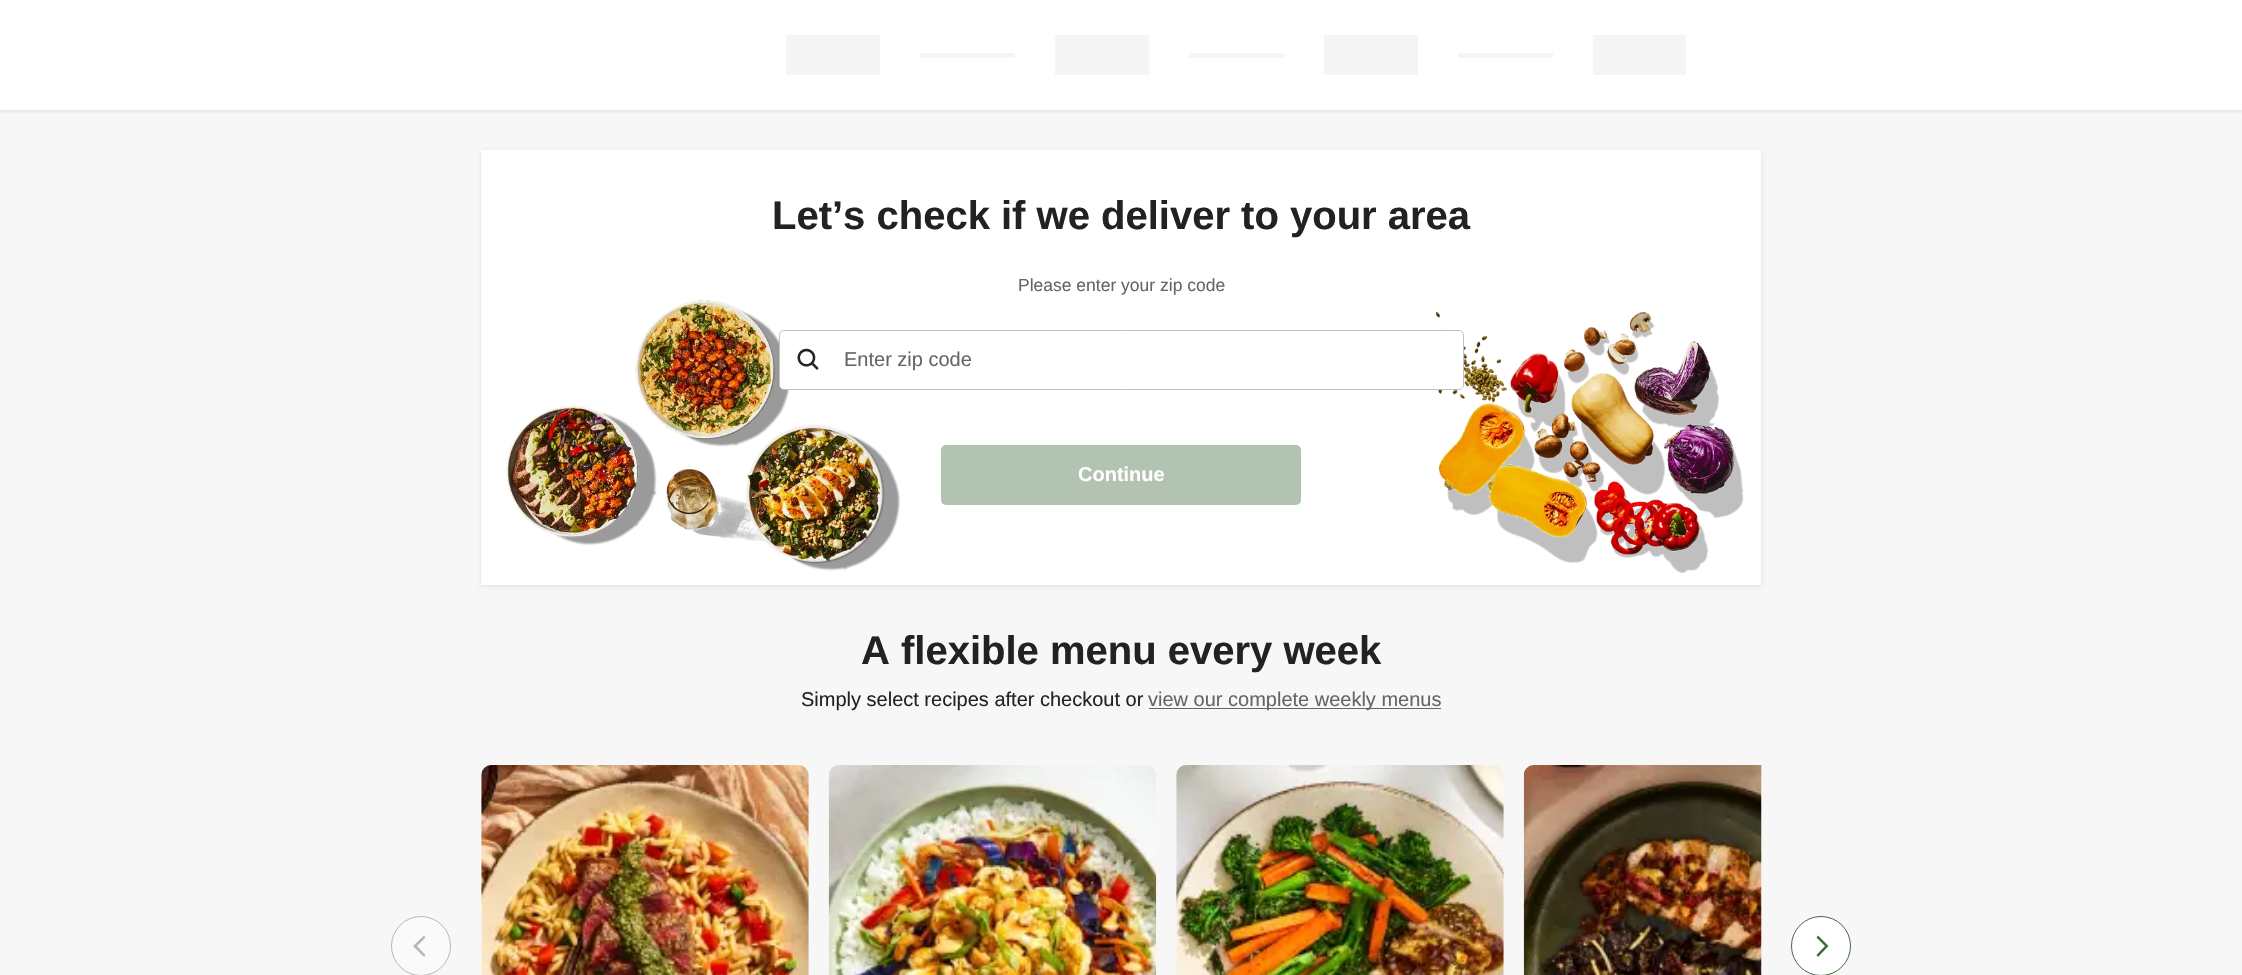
void draw(SkCanvas* canvas) {
	SkPaint fill;
	fill.setAntiAlias(true);
	auto makeFont = [&](const char* family, int weight, float size, bool italic = false) {
		SkFontStyle style(weight, SkFontStyle::kNormal_Width,
			italic ? SkFontStyle::kItalic_Slant : SkFontStyle::kUpright_Slant);
		SkFont result(fontMgr->matchFamilyStyle(family, style), size);
		result.setSubpixel(true);
		return result;
	};
	auto text = [&](const char* s, float x, float y, const SkFont& font) {
		canvas->drawString(s, x, y, font, fill);
	};
	auto box = [&](float l, float t, float r, float b) {
		canvas->drawRect(SkRect::MakeLTRB(l, t, r, b), fill);
	};
	auto roundBox = [&](float l, float t, float r, float b, float radius) {
		canvas->drawRoundRect(SkRect::MakeLTRB(l, t, r, b), radius, radius, fill);
	};
	auto picture = [&](const char* path, float l, float t, float r, float b) {
		auto image = SkImages::DeferredFromEncodedData(SkData::MakeFromFileName(path));
		canvas->drawImageRect(image, SkRect::MakeLTRB(l, t, r, b), SkSamplingOptions());
	};
	canvas->clear(0xFFFFFFFF);
	fill.setColor(0xFFF7F7F7);
	box(0, 110, 2242, 975);
	canvas->save();
	canvas->clipRect(SkRect::MakeLTRB(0, 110, 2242, 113));
	fill.setColor(0x1A000000);
	fill.setMaskFilter(SkMaskFilter::MakeBlur(kNormal_SkBlurStyle, 2));
	canvas->drawRect(SkRect::MakeLTRB(0, 1, 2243, 111), fill);
	fill.setMaskFilter(nullptr);
	canvas->restore();
	fill.setColor(0xFFF5F5F5);
	box(786, 35, 880, 75);
	box(920, 53, 1015, 58);
	box(1055, 35, 1149, 75);
	box(1189, 53, 1284, 58);
	box(1324, 35, 1418, 75);
	box(1458, 53, 1553, 58);
	box(1593, 35, 1686, 75);
	fill.setColor(0x1A000000);
	fill.setMaskFilter(SkMaskFilter::MakeBlur(kNormal_SkBlurStyle, 2));
	canvas->drawRect(SkRect::MakeLTRB(481, 151, 1761, 586), fill);
	fill.setMaskFilter(nullptr);
	fill.setColor(0xFFFFFFFF);
	box(481, 150, 1761, 585);
	picture("image1.png", 506, 300, 1744, 573);
	canvas->drawRoundRect(SkRect::MakeLTRB(779.5f, 330.5f, 1463.5f, 389.5f), 4.5f, 4.5f, fill);
	fill.setStyle(SkPaint::kStroke_Style);
	fill.setStrokeWidth(1);
	fill.setColor(0xFFC1C1C1);
	canvas->drawRoundRect(SkRect::MakeLTRB(779.5f, 330.5f, 1463.5f, 389.5f), 4.5f, 4.5f, fill);
	picture("image0.png", 797, 348, 819, 370);
	fill.setStyle(SkPaint::kFill_Style);
	fill.setColor(0xFFB3C3B1);
	roundBox(941, 445, 1301, 505, 5);
	fill.setColor(0xFF656565);
	box(1149, 708, 1441, 709);
	fill.setColor(0xFFFAFAFA);
	canvas->drawCircle(421, 946, 29.5f, fill);
	fill.setStyle(SkPaint::kStroke_Style);
	fill.setColor(0xFFAFBEAD);
	canvas->drawCircle(421, 946, 29.5f, fill);
	fill.setStyle(SkPaint::kFill_Style);
	canvas->drawPath(SkPathBuilder(SkPathFillType::kEvenOdd).moveTo(413, 946).lineTo(424, 935.5f).lineTo(425.5f, 937.5f).lineTo(417, 946).lineTo(425.5f, 955).lineTo(424, 957).close().detach(), fill);
	picture("image2.png", 481, 765, 809, 975);
	picture("image3.png", 828, 765, 1157, 975);
	picture("image4.png", 1176, 765, 1504, 975);
	picture("image5.png", 1523, 765, 1762, 975);
	fill.setColor(0xFFFFFFFF);
	canvas->drawCircle(1821, 946, 29.5f, fill);
	fill.setStyle(SkPaint::kStroke_Style);
	fill.setColor(0xFF42693D);
	canvas->drawCircle(1821, 946, 29.5f, fill);
	fill.setStyle(SkPaint::kFill_Style);
	canvas->drawPath(SkPathBuilder(SkPathFillType::kEvenOdd).moveTo(1828.5f, 946).lineTo(1818, 935.5f).lineTo(1816.5f, 937.5f).lineTo(1825, 946).lineTo(1816.5f, 955).lineTo(1818, 957).close().detach(), fill);
	auto font1 = makeFont("Liberation Sans", 700, 40);
	fill.setColor(0xFF222222);
	text("Let’s check if we deliver to your area", 772, 229, font1);
	auto font2 = makeFont("Liberation Sans", 400, 17.5f);
	fill.setColor(0xFF656565);
	text("Please enter your zip code", 1018, 291, font2);
	auto font3 = makeFont("Liberation Sans", 400, 20);
	text("Enter zip code", 844, 366, font3);
	auto font4 = makeFont("Liberation Sans", 700, 20);
	fill.setColor(0xFFFFFFFF);
	text("Continue", 1078, 481, font4);
	fill.setColor(0xFF222222);
	text("A flexible menu every week", 861, 664, font1);
	text("Simply select recipes after checkout or", 801, 706, font3);
	fill.setColor(0xFF656565);
	text("view our complete weekly menus", 1148, 706, font3);
}
